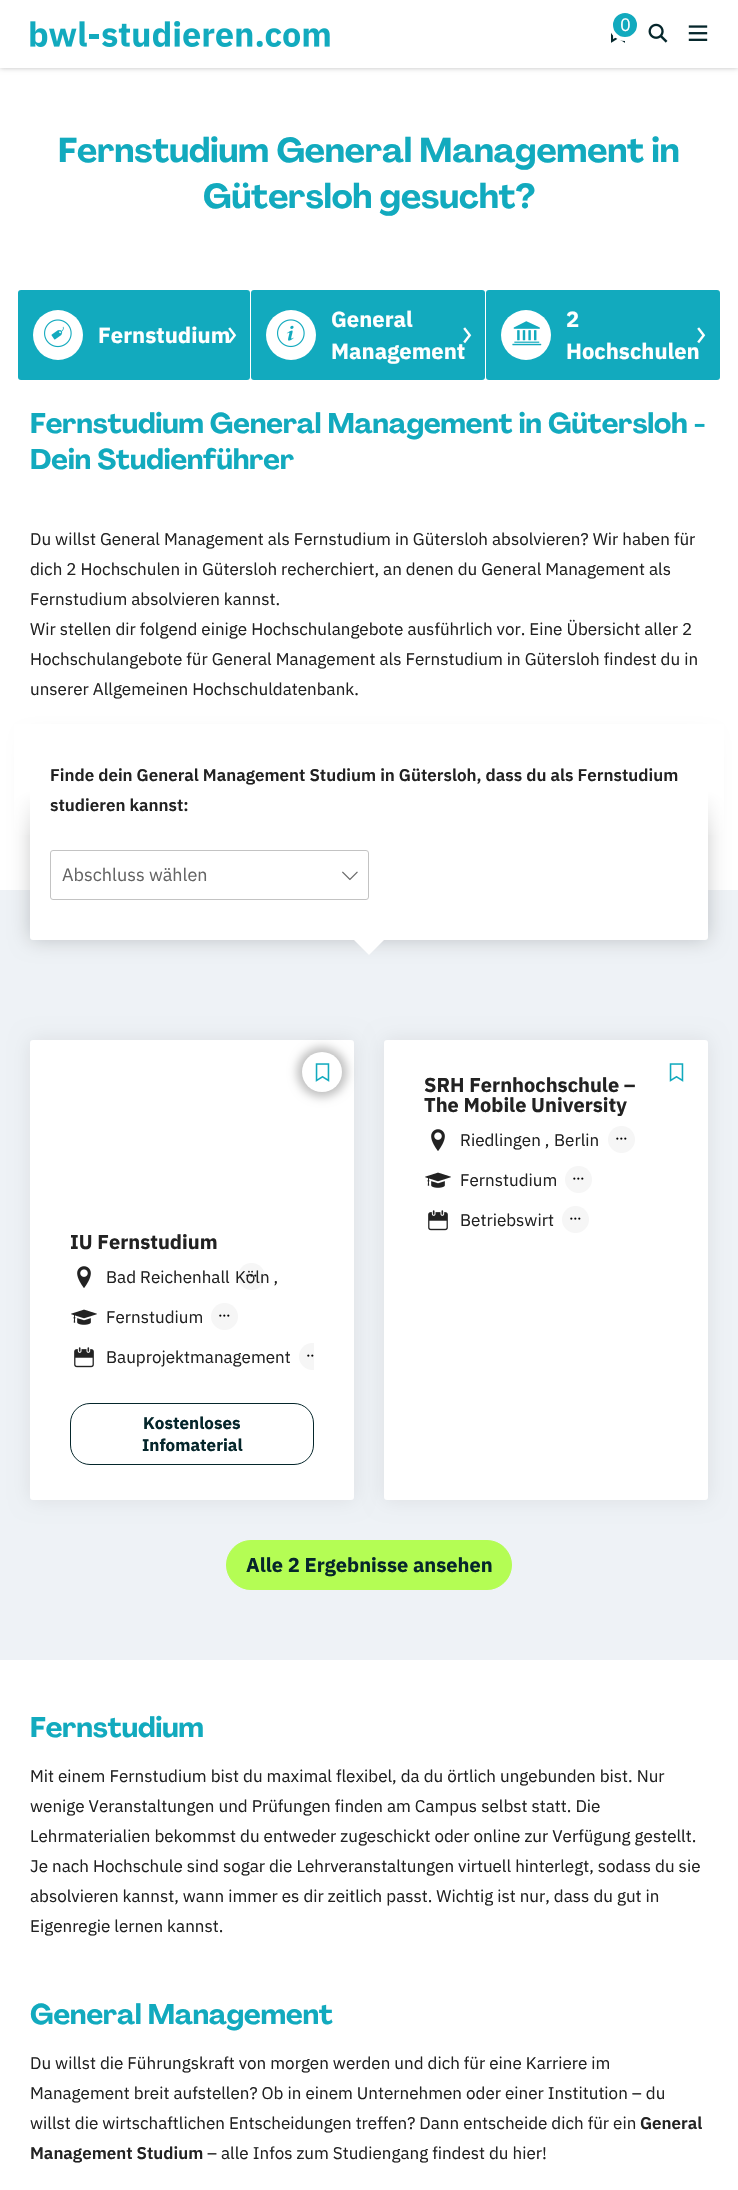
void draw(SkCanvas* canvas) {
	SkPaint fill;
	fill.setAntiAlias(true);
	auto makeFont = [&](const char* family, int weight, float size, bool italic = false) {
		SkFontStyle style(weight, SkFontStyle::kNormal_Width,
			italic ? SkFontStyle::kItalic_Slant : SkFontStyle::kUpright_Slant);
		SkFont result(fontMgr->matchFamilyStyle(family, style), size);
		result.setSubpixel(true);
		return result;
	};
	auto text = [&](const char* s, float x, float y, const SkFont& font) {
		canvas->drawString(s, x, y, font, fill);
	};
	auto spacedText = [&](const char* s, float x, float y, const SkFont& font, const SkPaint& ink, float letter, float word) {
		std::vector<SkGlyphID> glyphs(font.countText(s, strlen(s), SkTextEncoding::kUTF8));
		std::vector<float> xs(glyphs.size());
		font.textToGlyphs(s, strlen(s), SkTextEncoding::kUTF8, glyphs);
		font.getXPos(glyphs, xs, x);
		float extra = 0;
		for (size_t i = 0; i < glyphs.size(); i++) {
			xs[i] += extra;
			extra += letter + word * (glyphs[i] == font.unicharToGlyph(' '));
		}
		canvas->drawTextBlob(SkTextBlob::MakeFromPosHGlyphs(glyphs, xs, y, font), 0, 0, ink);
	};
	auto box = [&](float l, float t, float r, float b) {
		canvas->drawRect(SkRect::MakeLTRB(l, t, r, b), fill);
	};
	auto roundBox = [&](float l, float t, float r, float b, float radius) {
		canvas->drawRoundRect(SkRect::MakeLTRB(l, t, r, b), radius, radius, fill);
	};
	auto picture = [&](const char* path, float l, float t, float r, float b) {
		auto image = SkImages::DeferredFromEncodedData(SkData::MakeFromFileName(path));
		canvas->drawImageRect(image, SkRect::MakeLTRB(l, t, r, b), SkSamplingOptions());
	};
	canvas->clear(0xFFEEF2F6);
	fill.setColor(0xFFFFFFFF);
	box(0, 68, 738, 890);
	fill.setColor(0x40000000);
	fill.setMaskFilter(SkMaskFilter::MakeBlur(kNormal_SkBlurStyle, 2.5f));
	canvas->drawRect(SkRect::MakeLTRB(0, 0, 738, 68), fill);
	fill.setMaskFilter(nullptr);
	fill.setColor(0xFFFFFFFF);
	box(0, 0, 738, 68);
	picture("image0.png", 30, 21, 330, 47);
	picture("image1.png", 611, 32, 625, 43);
	fill.setColor(0xFF12AABE);
	canvas->drawCircle(625, 25, 14, fill);
	fill.setStyle(SkPaint::kStroke_Style);
	fill.setStrokeWidth(4);
	fill.setColor(0xFFFFFFFF);
	canvas->drawCircle(625, 25, 14, fill);
	picture("image2.png", 648, 23, 668, 43);
	picture("image3.png", 688, 25, 708, 41);
	fill.setStyle(SkPaint::kFill_Style);
	fill.setColor(0xFF12AABE);
	roundBox(18, 290, 250, 380, 3);
	fill.setColor(0xFFFFFFFF);
	canvas->drawCircle(58, 335, 25, fill);
	picture("image4.png", 44, 319, 72, 348);
	fill.setColor(0xFF12AABE);
	roundBox(251, 290, 485, 380, 3);
	fill.setColor(0xFFFFFFFF);
	canvas->drawCircle(291, 335, 25, fill);
	picture("image6.png", 277, 319, 305, 348);
	fill.setColor(0xFF12AABE);
	roundBox(486, 290, 720, 380, 3);
	fill.setColor(0xFFFFFFFF);
	canvas->drawCircle(526, 335, 25, fill);
	picture("image8.png", 512, 321, 542, 346);
	fill.setColor(0x33000000);
	fill.setMaskFilter(SkMaskFilter::MakeBlur(kNormal_SkBlurStyle, 10));
	canvas->drawRoundRect(SkRect::MakeLTRB(30, 740, 708, 940), 3, 3, fill);
	fill.setMaskFilter(nullptr);
	fill.setColor(0xFFFFFFFF);
	roundBox(30, 740, 708, 940, 3);
	box(14, 724, 724, 790);
	fill.setStyle(SkPaint::kStroke_Style);
	fill.setStrokeWidth(1);
	fill.setColor(0xFFC3C3C3);
	canvas->drawRoundRect(SkRect::MakeLTRB(50.5f, 850.5f, 368.5f, 899.5f), 2.5f, 2.5f, fill);
	picture("image9.png", 342, 871, 358, 881);
	fill.setStyle(SkPaint::kFill_Style);
	{
		const SkColor colors[] = {0x00FFFFFF, 0xFFFFFFFF};
		const float stops[] = {0, 1};
		const SkPoint ends[] = {{369, 840}, {369, 790}};
		fill.setShader(SkGradientShader::MakeLinear(ends, colors, stops, 2, SkTileMode::kClamp));
		fill.setAlpha(255);
	}
	box(14, 790, 724, 835);
	fill.setShader(nullptr);
	fill.setColor(0xFFFFFFFF);
	canvas->drawPath(SkPathBuilder().moveTo(354, 940).lineTo(384, 940).lineTo(369, 955).close().detach(), fill);
	fill.setColor(0x14000000);
	fill.setMaskFilter(SkMaskFilter::MakeBlur(kNormal_SkBlurStyle, 10));
	canvas->drawRoundRect(SkRect::MakeLTRB(30, 1040, 354, 1500), 3, 3, fill);
	fill.setMaskFilter(nullptr);
	fill.setColor(0xFFFFFFFF);
	roundBox(30, 1040, 354, 1500, 3);
	fill.setColor(0x14000000);
	fill.setMaskFilter(SkMaskFilter::MakeBlur(kNormal_SkBlurStyle, 10));
	canvas->drawRoundRect(SkRect::MakeLTRB(384, 1040, 708, 1500), 3, 3, fill);
	fill.setMaskFilter(nullptr);
	fill.setColor(0xFFFFFFFF);
	roundBox(384, 1040, 708, 1500, 3);
	picture("image10.png", 669, 1063, 684, 1082);
	picture("image11.png", 431, 1129, 445, 1151);
	fill.setColor(0xFFF6F6F6);
	canvas->drawCircle(621.5f, 1139.5f, 13.5f, fill);
	picture("image12.png", 616, 1137, 627, 1140);
	picture("image13.png", 425, 1172, 451, 1188);
	canvas->drawCircle(578.5f, 1179.5f, 13.5f, fill);
	picture("image12.png", 573, 1177, 584, 1180);
	picture("image14.png", 428, 1210, 448, 1231);
	canvas->drawCircle(575.5f, 1219.5f, 13.5f, fill);
	picture("image12.png", 570, 1217, 581, 1220);
	fill.setColor(0x40000000);
	fill.setMaskFilter(SkMaskFilter::MakeBlur(kNormal_SkBlurStyle, 5));
	canvas->drawRoundRect(SkRect::MakeLTRB(297, 1047, 347, 1097), 25, 25, fill);
	fill.setMaskFilter(nullptr);
	fill.setColor(0xFFFFFFFF);
	canvas->drawCircle(322, 1072, 20, fill);
	picture("image10.png", 315, 1063, 330, 1082);
	picture("image11.png", 77, 1266, 91, 1288);
	fill.setColor(0xFFF6F6F6);
	canvas->drawCircle(251.5f, 1276.5f, 13.5f, fill);
	picture("image12.png", 246, 1274, 257, 1277);
	picture("image13.png", 71, 1309, 97, 1325);
	canvas->drawCircle(224.5f, 1316.5f, 13.5f, fill);
	picture("image12.png", 219, 1314, 230, 1317);
	picture("image14.png", 74, 1347, 94, 1368);
	canvas->save();
	canvas->clipRect(SkRect::MakeLTRB(106, 1343, 314, 1371));
	canvas->drawCircle(312.5f, 1356.5f, 13.5f, fill);
	canvas->restore();
	picture("image15.png", 307, 1354, 314, 1357);
	fill.setStyle(SkPaint::kStroke_Style);
	fill.setColor(0xFF05262B);
	canvas->drawRoundRect(SkRect::MakeLTRB(70.5f, 1403.5f, 313.5f, 1464.5f), 19.5f, 19.5f, fill);
	fill.setStyle(SkPaint::kFill_Style);
	fill.setColor(0xFFB4FD54);
	canvas->drawRoundRect(SkRect::MakeLTRB(226.5f, 1540.5f, 511.5f, 1589.5f), 24.5f, 24.5f, fill);
	fill.setStyle(SkPaint::kStroke_Style);
	canvas->drawRoundRect(SkRect::MakeLTRB(226.5f, 1540.5f, 511.5f, 1589.5f), 24.5f, 24.5f, fill);
	fill.setStyle(SkPaint::kFill_Style);
	fill.setColor(0xFFFFFFFF);
	box(0, 1660, 738, 2190);
	auto font1 = makeFont("IBM Plex Sans", 400, 18);
	spacedText("0", 620, 31, font1, fill, -2, 0);
	auto font2 = makeFont("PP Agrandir", 700, 34);
	fill.setColor(0xFF12AABE);
	text("Fernstudium General Management in", 58, 162, font2);
	text("Gütersloh gesucht?", 203, 208, font2);
	auto font3 = makeFont("IBM Plex Sans", 700, 22);
	fill.setColor(0xFFFFFFFF);
	text("Fernstudium", 98, 343, font3);
	picture("image5.png", 228, 327, 237, 344);
	text("General", 331, 327, font3);
	text("Management", 331, 359, font3);
	picture("image7.png", 463, 327, 472, 344);
	text("2", 566, 327, font3);
	text("Hochschulen", 566, 359, font3);
	picture("image7.png", 697, 327, 706, 344);
	auto font4 = makeFont("PP Agrandir", 700, 28);
	fill.setColor(0xFF12AABE);
	text("Fernstudium General Management in Gütersloh -", 30, 433, font4);
	text("Dein Studienführer", 30, 469, font4);
	auto font5 = makeFont("IBM Plex Sans", 400, 17);
	fill.setColor(0xFF222222);
	text("Du willst General Management als Fernstudium in Gütersloh absolvieren? Wir haben für", 30, 545, font5);
	text("dich 2 Hochschulen in Gütersloh recherchiert, an denen du General Management als", 30, 575, font5);
	text("Fernstudium absolvieren kannst.", 30, 605, font5);
	text("Wir stellen dir folgend einige Hochschulangebote ausführlich vor. Eine Übersicht aller 2", 30, 635, font5);
	text("Hochschulangebote für General Management als Fernstudium in Gütersloh findest du in", 30, 665, font5);
	text("unserer Allgemeinen Hochschuldatenbank.", 30, 695, font5);
	auto font6 = makeFont("IBM Plex Sans", 600, 17);
	text("Finde dein General Management Studium in Gütersloh, dass du als Fernstudium", 50, 781, font6);
	text("studieren kannst:", 50, 811, font6);
	fill.setColor(0xFF646464);
	text("Abschluss wählen", 62, 881, font1);
	auto font7 = makeFont("IBM Plex Sans", 700, 20);
	fill.setColor(0xFF222222);
	text("SRH Fernhochschule –", 424, 1092, font7);
	text("The Mobile University", 424, 1112, font7);
	text("Riedlingen ,", 460, 1146, font5);
	text("Berlin", 554, 1146, font5);
	text("Fernstudium", 460, 1186, font5);
	text("Betriebswirt", 460, 1226, font5);
	text("IU Fernstudium", 70, 1249, font7);
	text("Bad Reichenhall", 106, 1283, font5);
	text("Köln ,", 235, 1283, font5);
	text("Fernstudium", 106, 1323, font5);
	text("Bauprojektmanagement", 106, 1363, font5);
	auto font8 = makeFont("IBM Plex Sans", 700, 17);
	fill.setColor(0xFF05262B);
	text("Kostenloses", 143, 1429, font8);
	text("Infomaterial", 142, 1451, font8);
	text("Alle 2 Ergebnisse ansehen", 246, 1572, font7);
	fill.setColor(0xFF12AABE);
	text("Fernstudium", 30, 1737, font4);
	fill.setColor(0xFF222222);
	text("Mit einem Fernstudium bist du maximal flexibel, da du örtlich ungebunden bist. Nur", 30, 1782, font5);
	text("wenige Veranstaltungen und Prüfungen finden am Campus selbst statt. Die", 30, 1812, font5);
	text("Lehrmaterialien bekommst du entweder zugeschickt oder online zur Verfügung gestellt.", 30, 1842, font5);
	text("Je nach Hochschule sind sogar die Lehrveranstaltungen virtuell hinterlegt, sodass du sie", 30, 1872, font5);
	text("absolvieren kannst, wann immer es dir zeitlich passt. Wichtig ist nur, dass du gut in", 30, 1902, font5);
	text("Eigenregie lernen kannst.", 30, 1932, font5);
	fill.setColor(0xFF12AABE);
	text("General Management", 30, 2024, font4);
	fill.setColor(0xFF222222);
	text("Du willst die Führungskraft von morgen werden und dich für eine Karriere im", 30, 2069, font5);
	text("Management breit aufstellen? Ob in einem Unternehmen oder einer Institution – du", 30, 2099, font5);
	text("willst die wirtschaftlichen Entscheidungen treffen? Dann entscheide dich für ein", 30, 2129, font5);
	text("General", 640, 2129, font6);
	text("Management Studium", 30, 2159, font6);
	text("– alle Infos zum Studiengang findest du hier!", 207, 2159, font5);
}
